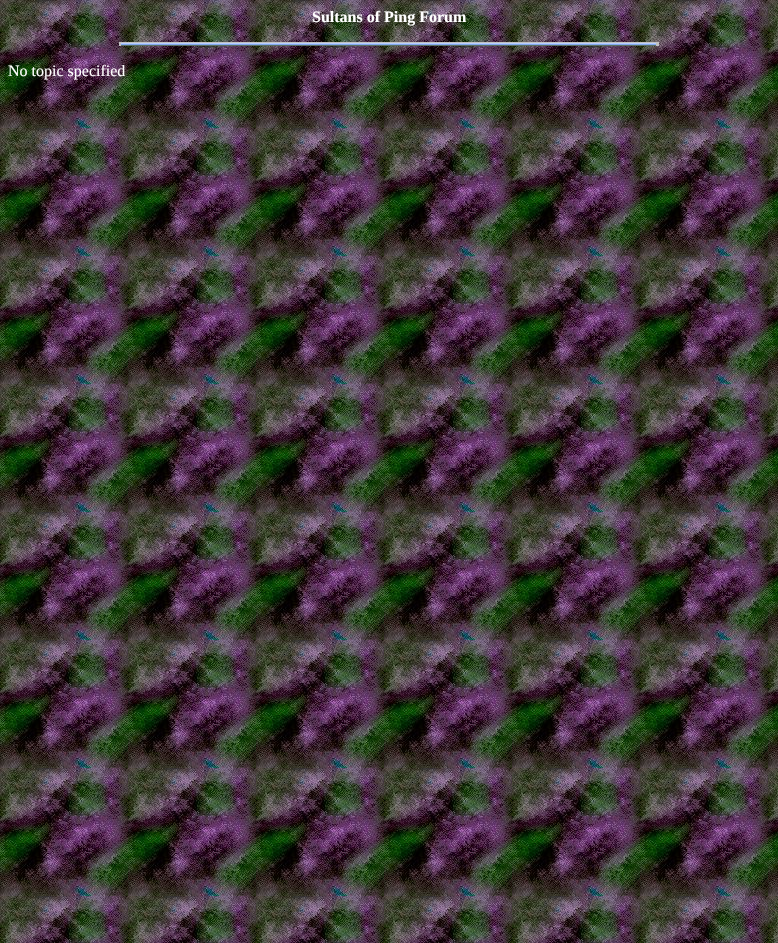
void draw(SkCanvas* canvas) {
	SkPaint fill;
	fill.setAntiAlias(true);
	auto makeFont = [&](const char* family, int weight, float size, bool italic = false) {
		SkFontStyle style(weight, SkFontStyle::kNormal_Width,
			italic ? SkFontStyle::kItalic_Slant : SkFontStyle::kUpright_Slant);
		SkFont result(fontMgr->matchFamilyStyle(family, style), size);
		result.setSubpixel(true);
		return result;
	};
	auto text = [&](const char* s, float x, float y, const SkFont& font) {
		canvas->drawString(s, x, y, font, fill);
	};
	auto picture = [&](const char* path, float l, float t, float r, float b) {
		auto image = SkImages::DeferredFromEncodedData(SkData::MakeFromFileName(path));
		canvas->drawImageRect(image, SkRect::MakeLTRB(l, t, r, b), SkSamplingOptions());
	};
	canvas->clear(0xFFFFFFFF);
	picture("image0.png", 0, 0, 778, 943);
	picture("image1.png", 119, 42, 659, 46);
	auto font1 = makeFont("Liberation Serif", 700, 16);
	fill.setColor(0xFFFFFFFF);
	text("Sultans of Ping Forum", 312, 22, font1);
	auto font2 = makeFont("Liberation Serif", 400, 16);
	text("No topic specified", 8, 76, font2);
}
